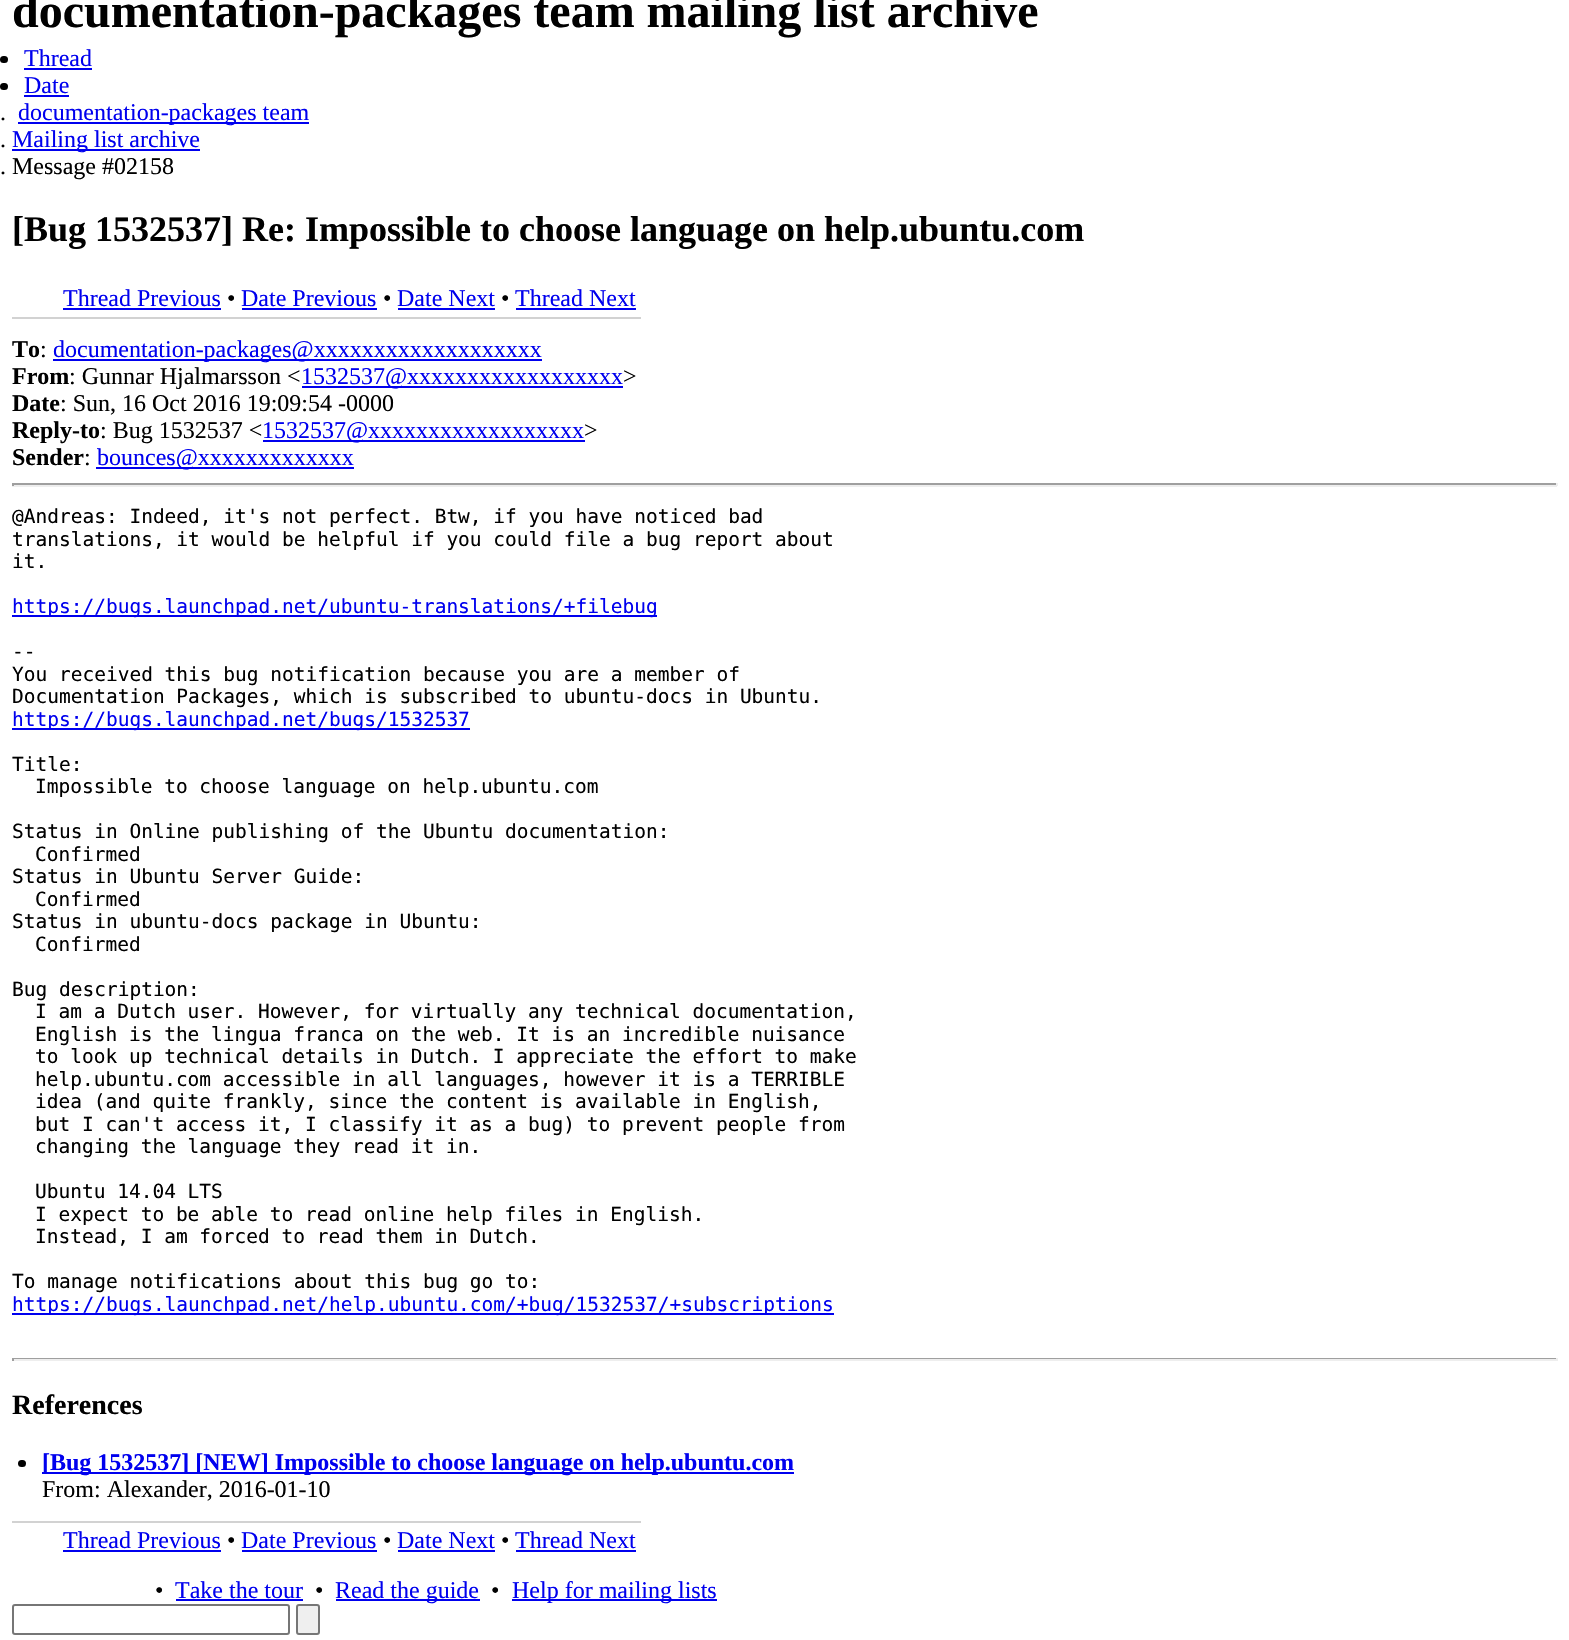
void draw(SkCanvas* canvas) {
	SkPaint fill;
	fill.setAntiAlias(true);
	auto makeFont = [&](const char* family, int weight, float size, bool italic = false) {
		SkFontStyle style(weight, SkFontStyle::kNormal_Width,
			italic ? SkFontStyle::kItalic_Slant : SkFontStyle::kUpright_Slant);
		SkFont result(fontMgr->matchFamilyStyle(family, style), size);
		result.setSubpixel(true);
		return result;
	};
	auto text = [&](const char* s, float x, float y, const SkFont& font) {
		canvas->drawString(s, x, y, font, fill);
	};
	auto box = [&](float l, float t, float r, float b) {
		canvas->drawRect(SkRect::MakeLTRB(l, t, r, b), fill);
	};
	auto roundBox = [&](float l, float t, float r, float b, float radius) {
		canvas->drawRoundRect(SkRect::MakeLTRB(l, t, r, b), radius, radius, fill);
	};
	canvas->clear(0xFFFFFFFF);
	fill.setColor(0xFF000000);
	roundBox(0, 56, 8, 63, 3.5f);
	fill.setColor(0xFF0000EE);
	box(24, 68, 92, 70);
	fill.setColor(0xFF000000);
	roundBox(0, 83, 8, 90, 3.5f);
	fill.setColor(0xFF0000EE);
	box(24, 95, 69, 97);
	box(18, 122, 309, 124);
	box(12, 149, 200, 151);
	fill.setColor(0xFFD2D2D2);
	box(12, 317, 641, 319);
	fill.setColor(0xFF0000EE);
	box(63, 308, 221, 310);
	box(242, 308, 377, 310);
	box(398, 308, 495, 310);
	box(516, 308, 636, 310);
	box(53, 359, 542, 361);
	box(302, 386, 623, 388);
	box(263, 440, 585, 442);
	box(96, 467, 354, 469);
	fill.setColor(0xFF9F9F9F);
	box(12, 483, 1557, 485);
	fill.setColor(0xFFEEEEEE);
	box(1556, 483, 1558, 486);
	box(12, 485, 1557, 487);
	fill.setColor(0xFF9F9F9F);
	box(12, 483, 14, 486);
	fill.setColor(0xFF0000EE);
	box(12, 615, 657, 617);
	box(12, 728, 470, 730);
	box(12, 1313, 834, 1315);
	fill.setColor(0xFF9F9F9F);
	box(12, 1358, 1557, 1359);
	fill.setColor(0xFFEEEEEE);
	box(1556, 1358, 1558, 1361);
	box(12, 1359, 1557, 1361);
	fill.setColor(0xFF9F9F9F);
	box(12, 1358, 14, 1361);
	fill.setColor(0xFF000000);
	roundBox(18, 1460, 26, 1467, 3.5f);
	fill.setColor(0xFF0000EE);
	box(42, 1472, 794, 1474);
	fill.setColor(0xFFD2D2D2);
	box(12, 1521, 641, 1523);
	fill.setColor(0xFF0000EE);
	box(63, 1550, 221, 1552);
	box(242, 1550, 377, 1552);
	box(398, 1550, 495, 1552);
	box(516, 1550, 636, 1552);
	box(176, 1599, 303, 1601);
	box(336, 1599, 480, 1601);
	box(512, 1599, 717, 1601);
	fill.setStyle(SkPaint::kStroke_Style);
	fill.setStrokeWidth(2);
	fill.setColor(0xFF767676);
	canvas->drawRoundRect(SkRect::MakeLTRB(13, 1605, 289, 1634), 2, 2, fill);
	fill.setStyle(SkPaint::kFill_Style);
	fill.setColor(0xFFEFEFEF);
	canvas->drawRoundRect(SkRect::MakeLTRB(297, 1605, 319, 1634), 2, 2, fill);
	fill.setStyle(SkPaint::kStroke_Style);
	fill.setColor(0xFF767676);
	canvas->drawRoundRect(SkRect::MakeLTRB(297, 1605, 319, 1634), 2, 2, fill);
	auto font1 = makeFont("Liberation Serif", 700, 48);
	fill.setStyle(SkPaint::kFill_Style);
	fill.setColor(0xFF000000);
	text("documentation-packages team mailing list archive", 12, 27, font1);
	auto font2 = makeFont("Liberation Serif", 400, 24);
	fill.setColor(0xFF0000EE);
	text("Thread", 24, 66, font2);
	text("Date", 24, 93, font2);
	fill.setColor(0xFF000000);
	text(".", 0, 120, font2);
	fill.setColor(0xFF0000EE);
	text("documentation-packages team", 18, 120, font2);
	fill.setColor(0xFF000000);
	text(".", 0, 147, font2);
	fill.setColor(0xFF0000EE);
	text("Mailing list archive", 12, 147, font2);
	fill.setColor(0xFF000000);
	text(". Message #02158", 0, 174, font2);
	auto font3 = makeFont("Liberation Serif", 700, 36);
	text("[Bug 1532537] Re: Impossible to choose language on help.ubuntu.com", 12, 241, font3);
	fill.setColor(0xFF0000EE);
	text("Thread Previous", 63, 306, font2);
	fill.setColor(0xFF000000);
	text("•", 227, 306, font2);
	fill.setColor(0xFF0000EE);
	text("Date Previous", 241, 306, font2);
	fill.setColor(0xFF000000);
	text("•", 383, 306, font2);
	fill.setColor(0xFF0000EE);
	text("Date Next", 397, 306, font2);
	fill.setColor(0xFF000000);
	text("•", 501, 306, font2);
	fill.setColor(0xFF0000EE);
	text("Thread Next", 515, 306, font2);
	auto font4 = makeFont("Liberation Serif", 700, 24);
	fill.setColor(0xFF000000);
	text("To", 12, 357, font4);
	text(":", 40, 357, font2);
	fill.setColor(0xFF0000EE);
	text("documentation-packages@xxxxxxxxxxxxxxxxxxx", 53, 357, font2);
	fill.setColor(0xFF000000);
	text("From", 12, 384, font4);
	text(": Gunnar Hjalmarsson <", 69, 384, font2);
	fill.setColor(0xFF0000EE);
	text("1532537@xxxxxxxxxxxxxxxxxx", 301, 384, font2);
	fill.setColor(0xFF000000);
	text(">", 623, 384, font2);
	text("Date", 12, 411, font4);
	text(": Sun, 16 Oct 2016 19:09:54 -0000", 60, 411, font2);
	text("Reply-to", 12, 438, font4);
	text(": Bug 1532537 <", 100, 438, font2);
	fill.setColor(0xFF0000EE);
	text("1532537@xxxxxxxxxxxxxxxxxx", 262, 438, font2);
	fill.setColor(0xFF000000);
	text(">", 584, 438, font2);
	text("Sender", 12, 465, font4);
	text(":", 84, 465, font2);
	fill.setColor(0xFF0000EE);
	text("bounces@xxxxxxxxxxxxx", 97, 465, font2);
	auto font5 = makeFont("DejaVu Sans Mono", 400, 19.5f);
	fill.setColor(0xFF000000);
	text("@Andreas: Indeed, it's not perfect. Btw, if you have noticed bad", 12, 523, font5);
	text("translations, it would be helpful if you could file a bug report about", 12, 546, font5);
	text("it.", 12, 568, font5);
	fill.setColor(0xFF0000EE);
	text("https://bugs.launchpad.net/ubuntu-translations/+filebug", 12, 613, font5);
	fill.setColor(0xFF000000);
	text("--", 12, 658, font5);
	text("You received this bug notification because you are a member of", 12, 681, font5);
	text("Documentation Packages, which is subscribed to ubuntu-docs in Ubuntu.", 12, 703, font5);
	fill.setColor(0xFF0000EE);
	text("https://bugs.launchpad.net/bugs/1532537", 12, 726, font5);
	fill.setColor(0xFF000000);
	text("Title:", 12, 771, font5);
	text("Impossible to choose language on help.ubuntu.com", 35, 793, font5);
	text("Status in Online publishing of the Ubuntu documentation:", 12, 838, font5);
	text("Confirmed", 35, 861, font5);
	text("Status in Ubuntu Server Guide:", 12, 883, font5);
	text("Confirmed", 35, 906, font5);
	text("Status in ubuntu-docs package in Ubuntu:", 12, 928, font5);
	text("Confirmed", 35, 951, font5);
	text("Bug description:", 12, 996, font5);
	text("I am a Dutch user. However, for virtually any technical documentation,", 35, 1018, font5);
	text("English is the lingua franca on the web. It is an incredible nuisance", 35, 1041, font5);
	text("to look up technical details in Dutch. I appreciate the effort to make", 35, 1063, font5);
	text("help.ubuntu.com accessible in all languages, however it is a TERRIBLE", 35, 1086, font5);
	text("idea (and quite frankly, since the content is available in English,", 35, 1108, font5);
	text("but I can't access it, I classify it as a bug) to prevent people from", 35, 1131, font5);
	text("changing the language they read it in.", 35, 1153, font5);
	text("Ubuntu 14.04 LTS", 35, 1198, font5);
	text("I expect to be able to read online help files in English.", 35, 1221, font5);
	text("Instead, I am forced to read them in Dutch.", 35, 1243, font5);
	text("To manage notifications about this bug go to:", 12, 1288, font5);
	fill.setColor(0xFF0000EE);
	text("https://bugs.launchpad.net/help.ubuntu.com/+bug/1532537/+subscriptions", 12, 1311, font5);
	auto font6 = makeFont("Liberation Serif", 700, 28);
	fill.setColor(0xFF000000);
	text("References", 12, 1414, font6);
	fill.setColor(0xFF0000EE);
	text("[Bug 1532537] [NEW] Impossible to choose language on help.ubuntu.com", 42, 1470, font4);
	fill.setColor(0xFF000000);
	text("From: Alexander, 2016-01-10", 42, 1497, font2);
	fill.setColor(0xFF0000EE);
	text("Thread Previous", 63, 1548, font2);
	fill.setColor(0xFF000000);
	text("•", 227, 1548, font2);
	fill.setColor(0xFF0000EE);
	text("Date Previous", 241, 1548, font2);
	fill.setColor(0xFF000000);
	text("•", 383, 1548, font2);
	fill.setColor(0xFF0000EE);
	text("Date Next", 397, 1548, font2);
	fill.setColor(0xFF000000);
	text("•", 501, 1548, font2);
	fill.setColor(0xFF0000EE);
	text("Thread Next", 515, 1548, font2);
	fill.setColor(0xFF000000);
	text("•", 155, 1598, font2);
	fill.setColor(0xFF0000EE);
	text("Take the tour", 175, 1598, font2);
	fill.setColor(0xFF000000);
	text("•", 315, 1598, font2);
	fill.setColor(0xFF0000EE);
	text("Read the guide", 335, 1598, font2);
	fill.setColor(0xFF000000);
	text("•", 491, 1598, font2);
	fill.setColor(0xFF0000EE);
	text("Help for mailing lists", 512, 1598, font2);
}
